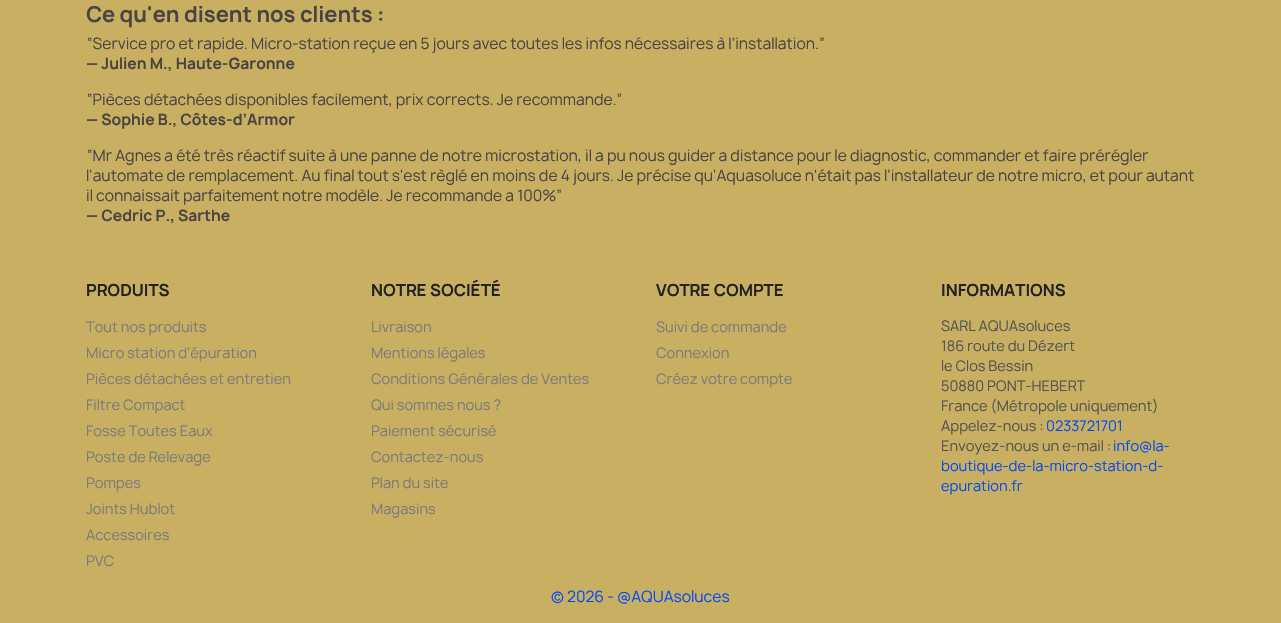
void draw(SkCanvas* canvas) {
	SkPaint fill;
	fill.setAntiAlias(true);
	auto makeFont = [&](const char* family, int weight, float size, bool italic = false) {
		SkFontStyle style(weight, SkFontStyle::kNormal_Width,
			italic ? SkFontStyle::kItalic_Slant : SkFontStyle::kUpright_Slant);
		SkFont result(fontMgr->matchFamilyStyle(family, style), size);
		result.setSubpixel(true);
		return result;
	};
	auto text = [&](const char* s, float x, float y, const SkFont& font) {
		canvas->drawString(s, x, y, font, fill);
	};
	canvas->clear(0xFFC8AF61);
	auto font1 = makeFont("Manrope", 700, 21);
	fill.setColor(0xFF484444);
	text("Ce qu'en disent nos clients :", 86, 22, font1);
	auto font2 = makeFont("Manrope", 400, 15);
	text("“Service pro et rapide. Micro-station reçue en 5 jours avec toutes les infos nécessaires à l’installation.”", 86, 49, font2);
	auto font3 = makeFont("Manrope", 700, 15);
	text("— Julien M., Haute-Garonne", 86, 69, font3);
	text("“Pièces détachées disponibles facilement, prix corrects. Je recommande.”", 86, 105, font2);
	text("— Sophie B., Côtes-d’Armor", 86, 125, font3);
	text("“Mr Agnes a été très réactif suite à une panne de notre microstation, il a pu nous guider a distance pour le diagnostic, commander et faire prérégler", 86, 161, font2);
	text("l'automate de remplacement. Au final tout s'est règlé en moins de 4 jours. Je précise qu'Aquasoluce n'était pas l'installateur de notre micro, et pour autant", 86, 181, font2);
	text("il connaissait parfaitement notre modèle. Je recommande a 100%”", 86, 201, font2);
	text("— Cedric P., Sarthe", 86, 221, font3);
	auto font4 = makeFont("Manrope", 700, 16);
	fill.setColor(0xFF232323);
	text("PRODUITS", 86, 296, font4);
	auto font5 = makeFont("Manrope", 400, 14);
	fill.setColor(0xFF7A7A7A);
	text("Tout nos produits", 86, 332, font5);
	text("Micro station d'épuration", 86, 358, font5);
	text("Pièces détachées et entretien", 86, 384, font5);
	text("Filtre Compact", 86, 410, font5);
	text("Fosse Toutes Eaux", 86, 436, font5);
	text("Poste de Relevage", 86, 462, font5);
	text("Pompes", 86, 488, font5);
	text("Joints Hublot", 86, 514, font5);
	text("Accessoires", 86, 540, font5);
	text("PVC", 86, 566, font5);
	fill.setColor(0xFF232323);
	text("NOTRE SOCIÉTÉ", 371, 296, font4);
	fill.setColor(0xFF7A7A7A);
	text("Livraison", 371, 332, font5);
	text("Mentions légales", 371, 358, font5);
	text("Conditions Générales de Ventes", 371, 384, font5);
	text("Qui sommes nous ?", 371, 410, font5);
	text("Paiement sécurisé", 371, 436, font5);
	text("Contactez-nous", 371, 462, font5);
	text("Plan du site", 371, 488, font5);
	text("Magasins", 371, 514, font5);
	fill.setColor(0xFF232323);
	text("VOTRE COMPTE", 656, 296, font4);
	fill.setColor(0xFF7A7A7A);
	text("Suivi de commande", 656, 332, font5);
	text("Connexion", 656, 358, font5);
	text("Créez votre compte", 656, 384, font5);
	fill.setColor(0xFF232323);
	text("INFORMATIONS", 941, 296, font4);
	fill.setColor(0xFF535353);
	text("SARL AQUAsoluces", 941, 331, font5);
	text("186 route du Dézert", 941, 351, font5);
	text("le Clos Bessin", 941, 371, font5);
	text("50880 PONT-HEBERT", 941, 391, font5);
	text("France (Métropole uniquement)", 941, 411, font5);
	text("Appelez-nous :", 941, 431, font5);
	fill.setColor(0xFF004AF7);
	text("0233721701", 1046, 431, font5);
	fill.setColor(0xFF535353);
	text("Envoyez-nous un e-mail :", 941, 451, font5);
	fill.setColor(0xFF004AF7);
	text("info@la-", 1113, 451, font5);
	text("boutique-de-la-micro-station-d-", 941, 471, font5);
	text("epuration.fr", 941, 491, font5);
	text("© 2026 - @AQUAsoluces", 551, 602, font2);
}
